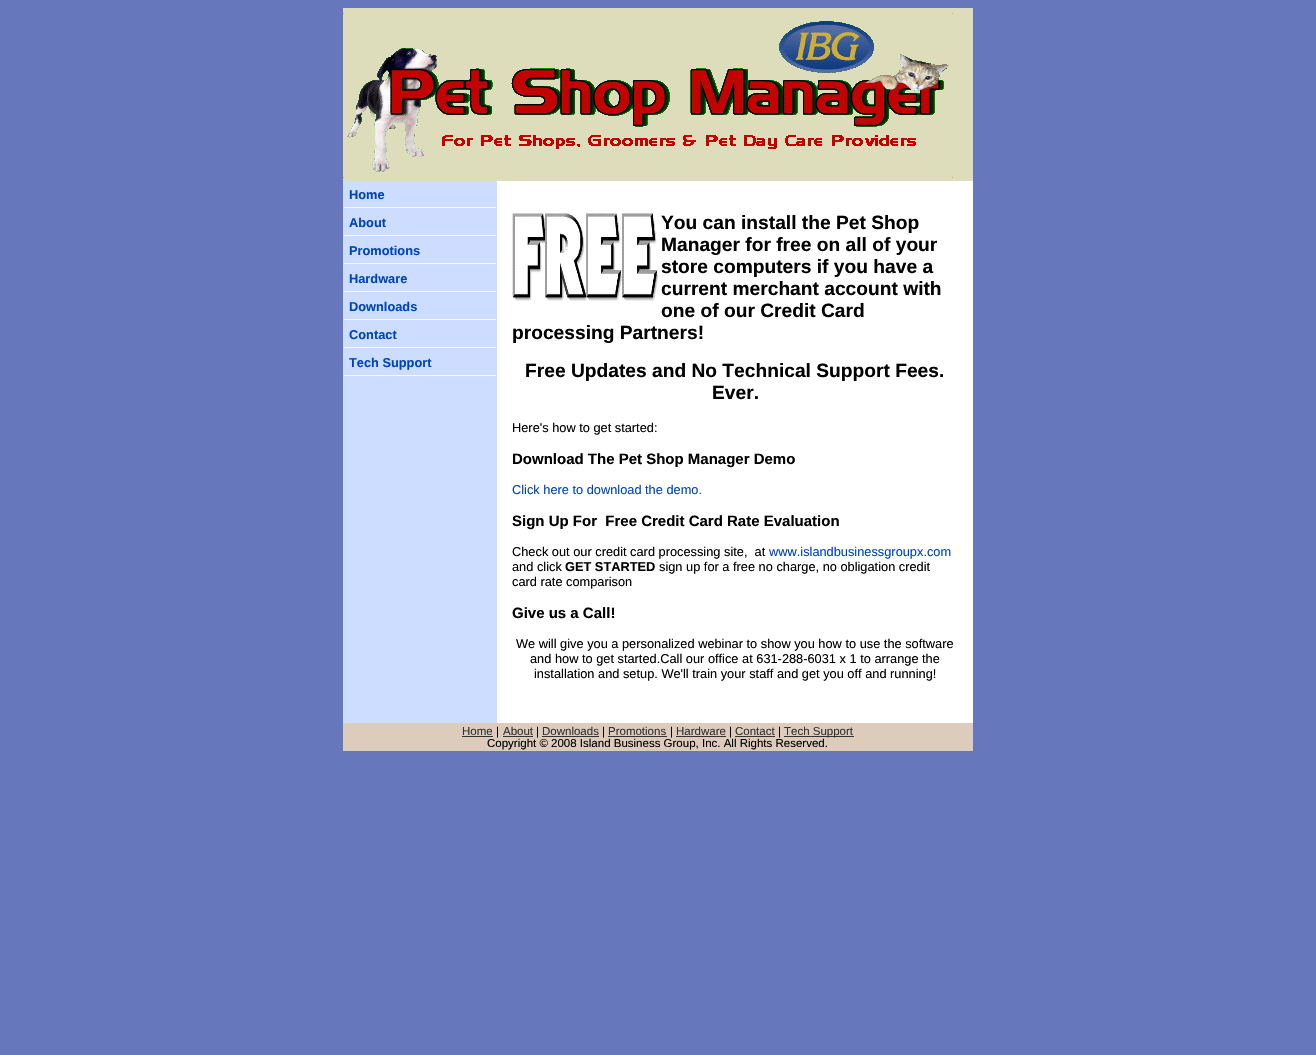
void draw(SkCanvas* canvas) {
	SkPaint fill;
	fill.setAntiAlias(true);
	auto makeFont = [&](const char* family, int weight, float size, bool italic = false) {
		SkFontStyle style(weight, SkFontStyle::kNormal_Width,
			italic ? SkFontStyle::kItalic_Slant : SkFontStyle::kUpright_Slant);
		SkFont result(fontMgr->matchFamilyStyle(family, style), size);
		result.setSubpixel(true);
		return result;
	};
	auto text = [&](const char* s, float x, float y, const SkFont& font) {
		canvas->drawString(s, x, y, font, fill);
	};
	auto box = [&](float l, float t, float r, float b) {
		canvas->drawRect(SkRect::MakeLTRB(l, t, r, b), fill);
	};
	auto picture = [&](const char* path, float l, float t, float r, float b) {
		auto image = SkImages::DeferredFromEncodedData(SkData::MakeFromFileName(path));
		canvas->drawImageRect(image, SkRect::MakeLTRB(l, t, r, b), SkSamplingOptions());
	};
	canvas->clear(0xFF6677BB);
	fill.setColor(0xFFCCDDFF);
	box(343, 181, 497, 723);
	fill.setColor(0xFFDDDDBB);
	box(343, 8, 973, 181);
	picture("image0.png", 343, 13, 953, 178);
	fill.setColor(0xFFF9F9F9);
	box(344, 207, 496, 208);
	box(344, 235, 496, 236);
	box(344, 263, 496, 264);
	box(344, 291, 496, 292);
	box(344, 319, 496, 320);
	box(344, 347, 496, 348);
	box(344, 375, 496, 376);
	fill.setColor(0xFFFFFFFF);
	box(497, 181, 973, 723);
	picture("image1.png", 512, 213, 658, 301);
	fill.setColor(0xFFDDCCBB);
	box(343, 723, 973, 751);
	fill.setColor(0xFF333333);
	box(462, 736, 493, 737);
	box(503, 736, 533, 737);
	box(542, 736, 599, 737);
	box(608, 736, 667, 737);
	box(676, 736, 726, 737);
	box(735, 736, 775, 737);
	box(784, 736, 854, 737);
	auto font1 = makeFont("Liberation Sans", 700, 12.8f);
	fill.setColor(0xFF0044BB);
	text("Home", 349, 199, font1);
	text("About", 349, 227, font1);
	text("Promotions", 349, 255, font1);
	text("Hardware", 349, 283, font1);
	text("Downloads", 349, 311, font1);
	text("Contact", 349, 339, font1);
	text("Tech Support", 349, 367, font1);
	auto font2 = makeFont("Liberation Sans", 700, 19.2f);
	fill.setColor(0xFF000000);
	text("You can install the Pet Shop", 661, 229, font2);
	text("Manager for free on all of your", 661, 251, font2);
	text("store computers if you have a", 661, 273, font2);
	text("current merchant account with", 661, 295, font2);
	text("one of our Credit Card", 661, 317, font2);
	text("processing Partners!", 512, 339, font2);
	text("Free Updates and No Technical Support Fees.", 525, 377, font2);
	text("Ever.", 712, 399, font2);
	auto font3 = makeFont("Liberation Sans", 400, 12.8f);
	text("Here's how to get started:", 512, 432, font3);
	auto font4 = makeFont("Liberation Sans", 700, 15);
	text("Download The Pet Shop Manager Demo", 512, 464, font4);
	fill.setColor(0xFF0044BB);
	text("Click here to download the demo.", 512, 494, font3);
	fill.setColor(0xFF000000);
	text("Sign Up For  Free Credit Card Rate Evaluation", 512, 526, font4);
	text("Check out our credit card processing site,  at", 512, 556, font3);
	fill.setColor(0xFF0044BB);
	text("www.islandbusinessgroupx.com", 769, 556, font3);
	fill.setColor(0xFF000000);
	text("and click", 512, 571, font3);
	text("GET STARTED", 565, 571, font1);
	text("sign up for a free no charge, no obligation credit", 659, 571, font3);
	text("card rate comparison", 512, 586, font3);
	text("Give us a Call!", 512, 618, font4);
	text("We will give you a personalized webinar to show you how to use the software", 516, 648, font3);
	text("and how to get started.Call our office at 631-288-6031 x 1 to arrange the", 530, 663, font3);
	text("installation and setup. We'll train your staff and get you off and running!", 534, 678, font3);
	auto font5 = makeFont("Liberation Sans", 400, 11.5f);
	fill.setColor(0xFF333333);
	text("Home", 462, 735, font5);
	fill.setColor(0xFF000000);
	text("|", 496, 735, font5);
	fill.setColor(0xFF333333);
	text("About", 503, 735, font5);
	fill.setColor(0xFF000000);
	text("|", 536, 735, font5);
	fill.setColor(0xFF333333);
	text("Downloads", 542, 735, font5);
	fill.setColor(0xFF000000);
	text("|", 602, 735, font5);
	fill.setColor(0xFF333333);
	text("Promotions", 608, 735, font5);
	fill.setColor(0xFF000000);
	text("|", 670, 735, font5);
	fill.setColor(0xFF333333);
	text("Hardware", 676, 735, font5);
	fill.setColor(0xFF000000);
	text("|", 729, 735, font5);
	fill.setColor(0xFF333333);
	text("Contact", 735, 735, font5);
	fill.setColor(0xFF000000);
	text("|", 778, 735, font5);
	fill.setColor(0xFF333333);
	text("Tech Support", 784, 735, font5);
	fill.setColor(0xFF000000);
	text("Copyright © 2008 Island Business Group, Inc. All Rights Reserved.", 487, 747, font5);
}
